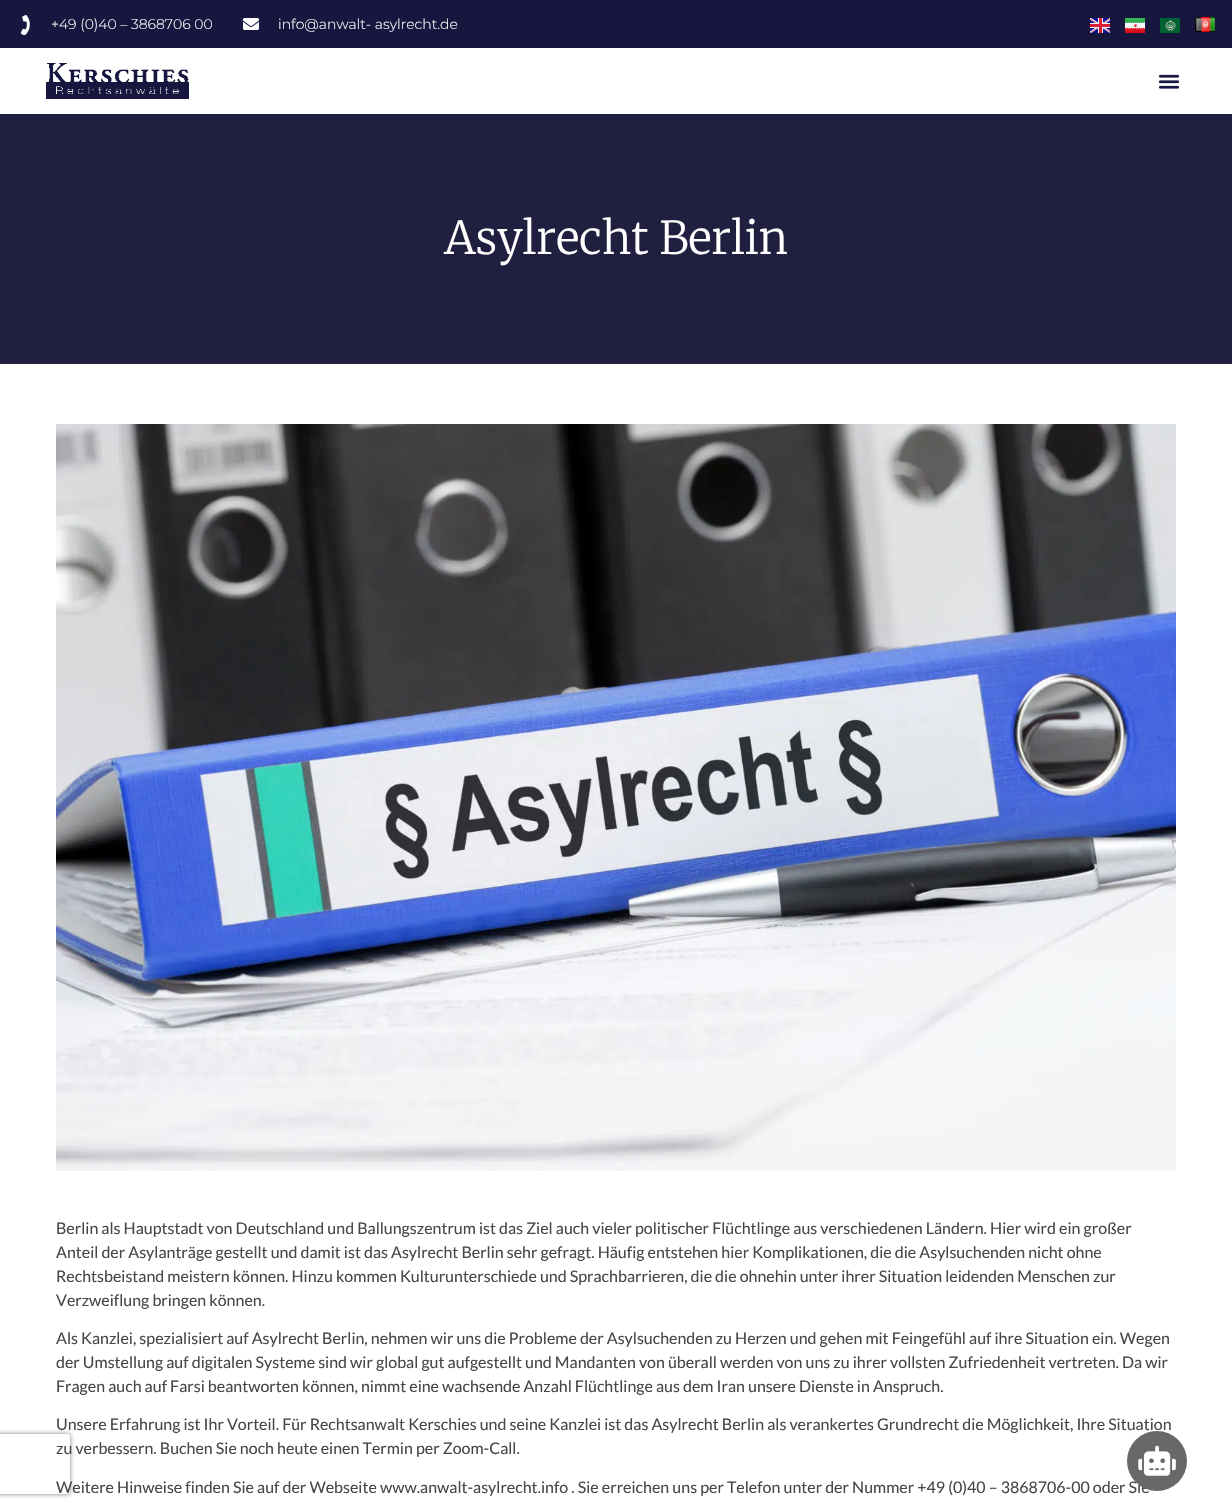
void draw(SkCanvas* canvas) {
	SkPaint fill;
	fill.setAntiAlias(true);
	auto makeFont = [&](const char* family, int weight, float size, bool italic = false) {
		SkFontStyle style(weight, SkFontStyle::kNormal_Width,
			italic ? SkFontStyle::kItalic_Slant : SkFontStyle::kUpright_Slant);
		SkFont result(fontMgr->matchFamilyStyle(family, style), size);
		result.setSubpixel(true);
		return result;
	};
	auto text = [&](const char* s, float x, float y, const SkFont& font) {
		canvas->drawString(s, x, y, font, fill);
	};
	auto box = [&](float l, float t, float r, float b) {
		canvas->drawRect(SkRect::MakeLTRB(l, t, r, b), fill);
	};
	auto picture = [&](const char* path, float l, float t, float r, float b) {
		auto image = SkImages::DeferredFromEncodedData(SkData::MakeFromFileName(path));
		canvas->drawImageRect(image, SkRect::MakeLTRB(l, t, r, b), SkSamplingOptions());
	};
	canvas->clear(0xFFFFFFFF);
	fill.setColor(0xFF16163F);
	box(0, 0, 1232, 48);
	picture("image0.png", 20, 14, 30, 35);
	picture("image1.png", 243, 18, 259, 30);
	picture("image2.png", 1090, 18, 1110, 33);
	picture("image3.png", 1125, 18, 1145, 33);
	picture("image4.png", 1160, 18, 1180, 33);
	picture("image5.png", 1195, 17, 1215, 32);
	picture("image6.png", 46, 63, 189, 99);
	picture("image7.png", 1158, 74, 1180, 89);
	canvas->save();
	canvas->clipPath(SkPathBuilder(SkPathFillType::kEvenOdd).moveTo(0, 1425).lineTo(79, 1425).lineTo(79, 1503).lineTo(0, 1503).close().moveTo(-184, 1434).lineTo(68, 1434).cubicTo(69, 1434, 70, 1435, 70, 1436).lineTo(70, 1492).cubicTo(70, 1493, 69, 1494, 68, 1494).lineTo(-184, 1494).cubicTo(-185, 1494, -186, 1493, -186, 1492).lineTo(-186, 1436).cubicTo(-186, 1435, -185, 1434, -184, 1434).close().detach(), true);
	fill.setColor(0xFF808080);
	fill.setMaskFilter(SkMaskFilter::MakeBlur(kNormal_SkBlurStyle, 2.5f));
	canvas->drawRoundRect(SkRect::MakeLTRB(-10, 1434, 70, 1494), 2, 2, fill);
	fill.setMaskFilter(nullptr);
	canvas->restore();
	fill.setColor(0xFF211F40);
	box(0, 114, 1232, 364);
	picture("image8.png", 56, 424, 1176, 1171);
	auto font1 = makeFont("Montserrat", 300, 14);
	fill.setColor(0xFFFFFFFF);
	text("+49 (0)40 – 3868706 00", 51, 29, font1);
	text("info@anwalt- asylrecht.de", 278, 29, font1);
	auto font2 = makeFont("Merriweather", 300, 45);
	text("Asylrecht Berlin", 444, 254, font2);
	auto font3 = makeFont("Lato", 400, 16);
	fill.setColor(0xFF474747);
	text("Berlin als Hauptstadt von Deutschland und Ballungszentrum ist das Ziel auch vieler politischer Flüchtlinge aus verschiedenen Ländern. Hier wird ein großer", 56, 1234, font3);
	text("Anteil der Asylanträge gestellt und damit ist das Asylrecht Berlin sehr gefragt. Häufig entstehen hier Komplikationen, die die Asylsuchenden nicht ohne", 56, 1258, font3);
	text("Rechtsbeistand meistern können. Hinzu kommen Kulturunterschiede und Sprachbarrieren, die die ohnehin unter ihrer Situation leidenden Menschen zur", 56, 1282, font3);
	text("Verzweiflung bringen können.", 56, 1306, font3);
	text("Als Kanzlei, spezialisiert auf Asylrecht Berlin, nehmen wir uns die Probleme der Asylsuchenden zu Herzen und gehen mit Feingefühl auf ihre Situation ein. Wegen", 56, 1344, font3);
	text("der Umstellung auf digitalen Systeme sind wir global gut aufgestellt und Mandanten von überall werden von uns zu ihrer vollsten Zufriedenheit vertreten. Da wir", 56, 1368, font3);
	text("Fragen auch auf Farsi beantworten können, nimmt eine wachsende Anzahl Flüchtlinge aus dem Iran unsere Dienste in Anspruch.", 56, 1392, font3);
	text("Unsere Erfahrung ist Ihr Vorteil. Für Rechtsanwalt Kerschies und seine Kanzlei ist das Asylrecht Berlin als verankertes Grundrecht die Möglichkeit, Ihre Situation", 56, 1430, font3);
	text("zu verbessern. Buchen Sie noch heute einen Termin per Zoom-Call.", 56, 1454, font3);
	text("Weitere Hinweise finden Sie auf der Webseite www.anwalt-asylrecht.info . Sie erreichen uns per Telefon unter der Nummer +49 (0)40 – 3868706-00 oder Sie", 56, 1493, font3);
	fill.setColor(0xFF686868);
	canvas->drawCircle(1157, 1461, 30, fill);
	picture("image9.png", 1138, 1445, 1176, 1476);
}
